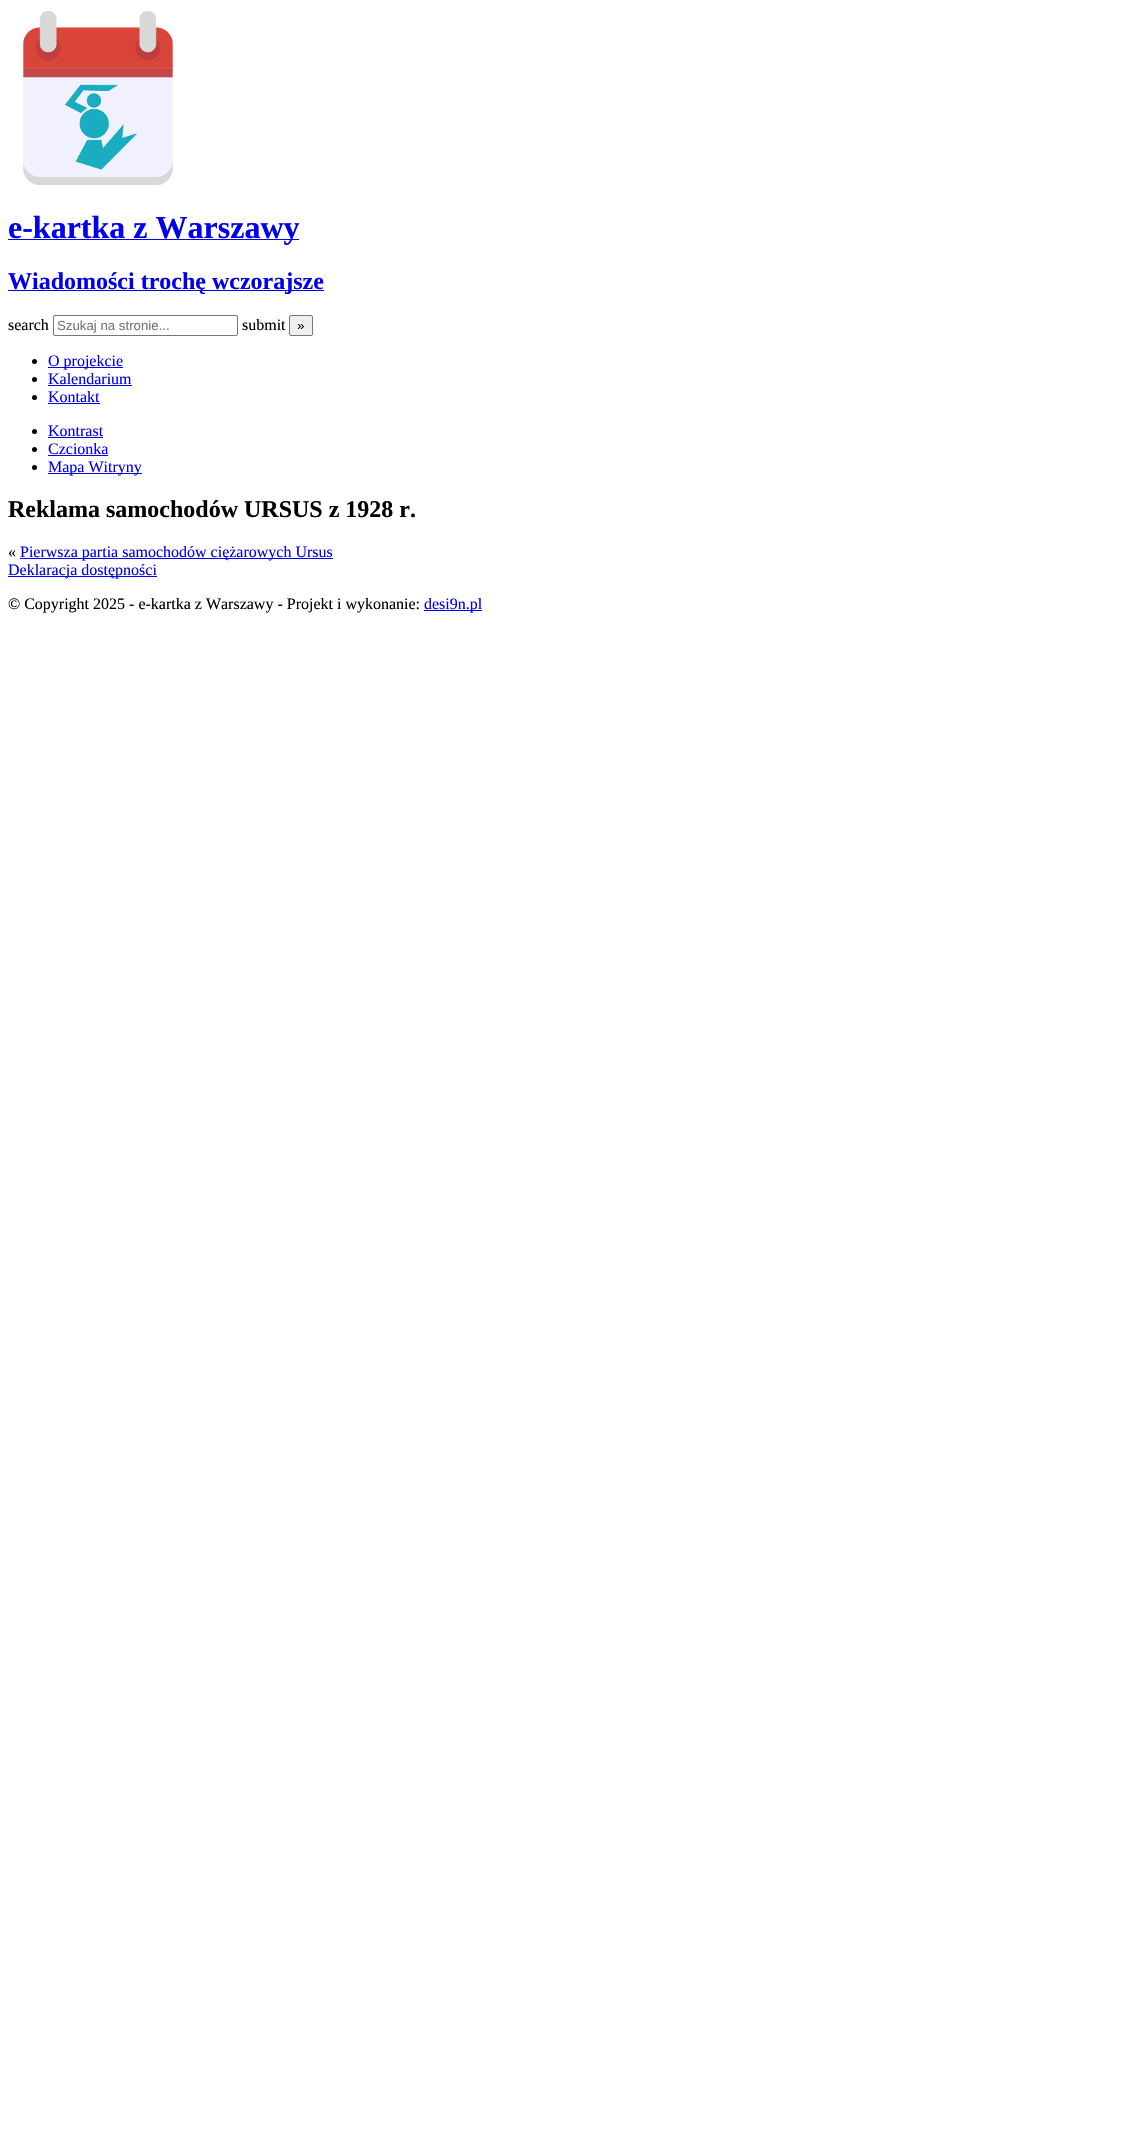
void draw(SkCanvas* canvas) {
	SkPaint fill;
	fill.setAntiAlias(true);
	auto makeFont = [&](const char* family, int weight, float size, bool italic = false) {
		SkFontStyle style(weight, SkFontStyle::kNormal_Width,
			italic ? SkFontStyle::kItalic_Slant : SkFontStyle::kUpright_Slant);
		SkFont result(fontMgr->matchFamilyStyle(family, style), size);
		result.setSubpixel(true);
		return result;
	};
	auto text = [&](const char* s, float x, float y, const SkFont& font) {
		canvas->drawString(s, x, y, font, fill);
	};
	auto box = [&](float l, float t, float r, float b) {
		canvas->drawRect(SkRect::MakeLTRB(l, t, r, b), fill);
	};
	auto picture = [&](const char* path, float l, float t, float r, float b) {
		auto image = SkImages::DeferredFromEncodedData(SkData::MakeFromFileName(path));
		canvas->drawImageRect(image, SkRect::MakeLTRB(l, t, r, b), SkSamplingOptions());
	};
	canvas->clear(0xFFFFFFFF);
	picture("image0.png", 22, 11, 174, 185);
	fill.setColor(0xFF0000EE);
	box(8, 239, 299, 240);
	box(8, 290, 324, 291);
	fill.setStyle(SkPaint::kStroke_Style);
	fill.setStrokeWidth(1);
	fill.setColor(0xFF767676);
	canvas->drawRoundRect(SkRect::MakeLTRB(53.5f, 315.5f, 237.5f, 335.5f), 1.5f, 1.5f, fill);
	fill.setStyle(SkPaint::kFill_Style);
	fill.setColor(0xFFEFEFEF);
	canvas->drawRoundRect(SkRect::MakeLTRB(289.5f, 315.5f, 312.5f, 335.5f), 1.5f, 1.5f, fill);
	fill.setStyle(SkPaint::kStroke_Style);
	fill.setColor(0xFF767676);
	canvas->drawRoundRect(SkRect::MakeLTRB(289.5f, 315.5f, 312.5f, 335.5f), 1.5f, 1.5f, fill);
	fill.setStyle(SkPaint::kFill_Style);
	fill.setColor(0xFF000000);
	canvas->drawCircle(34.5f, 361.5f, 2.5f, fill);
	fill.setColor(0xFF0000EE);
	box(48, 367, 123, 368);
	fill.setColor(0xFF000000);
	canvas->drawCircle(34.5f, 379.5f, 2.5f, fill);
	fill.setColor(0xFF0000EE);
	box(48, 385, 132, 386);
	fill.setColor(0xFF000000);
	canvas->drawCircle(34.5f, 397.5f, 2.5f, fill);
	fill.setColor(0xFF0000EE);
	box(48, 403, 100, 404);
	fill.setColor(0xFF000000);
	canvas->drawCircle(34.5f, 431.5f, 2.5f, fill);
	fill.setColor(0xFF0000EE);
	box(48, 437, 103, 438);
	fill.setColor(0xFF000000);
	canvas->drawCircle(34.5f, 449.5f, 2.5f, fill);
	fill.setColor(0xFF0000EE);
	box(48, 455, 108, 456);
	fill.setColor(0xFF000000);
	canvas->drawCircle(34.5f, 467.5f, 2.5f, fill);
	fill.setColor(0xFF0000EE);
	box(48, 473, 142, 474);
	box(20, 558, 333, 559);
	box(8, 576, 157, 577);
	box(424, 610, 482, 611);
	auto font1 = makeFont("Liberation Serif", 700, 32);
	text("e-kartka z Warszawy", 8, 238, font1);
	auto font2 = makeFont("Liberation Serif", 700, 24);
	text("Wiadomości trochę wczorajsze", 8, 289, font2);
	auto font3 = makeFont("Liberation Serif", 400, 16);
	fill.setColor(0xFF000000);
	text("search", 8, 330, font3);
	auto font4 = makeFont("Liberation Sans", 400, 13.25f);
	fill.setColor(0xFF757575);
	text("Szukaj na stronie...", 57, 330, font4);
	fill.setColor(0xFF000000);
	text("submit", 242, 330, font3);
	text("»", 297, 330, font4);
	fill.setColor(0xFF0000EE);
	text("O projekcie", 48, 366, font3);
	text("Kalendarium", 48, 384, font3);
	text("Kontakt", 48, 402, font3);
	text("Kontrast", 48, 436, font3);
	text("Czcionka", 48, 454, font3);
	text("Mapa Witryny", 48, 472, font3);
	fill.setColor(0xFF000000);
	text("Reklama samochodów URSUS z 1928 r.", 8, 517, font2);
	text("«", 8, 557, font3);
	fill.setColor(0xFF0000EE);
	text("Pierwsza partia samochodów ciężarowych Ursus", 20, 557, font3);
	text("Deklaracja dostępności", 8, 575, font3);
	fill.setColor(0xFF000000);
	text("© Copyright 2025 - e-kartka z Warszawy - Projekt i wykonanie:", 8, 609, font3);
	fill.setColor(0xFF0000EE);
	text("desi9n.pl", 424, 609, font3);
}
